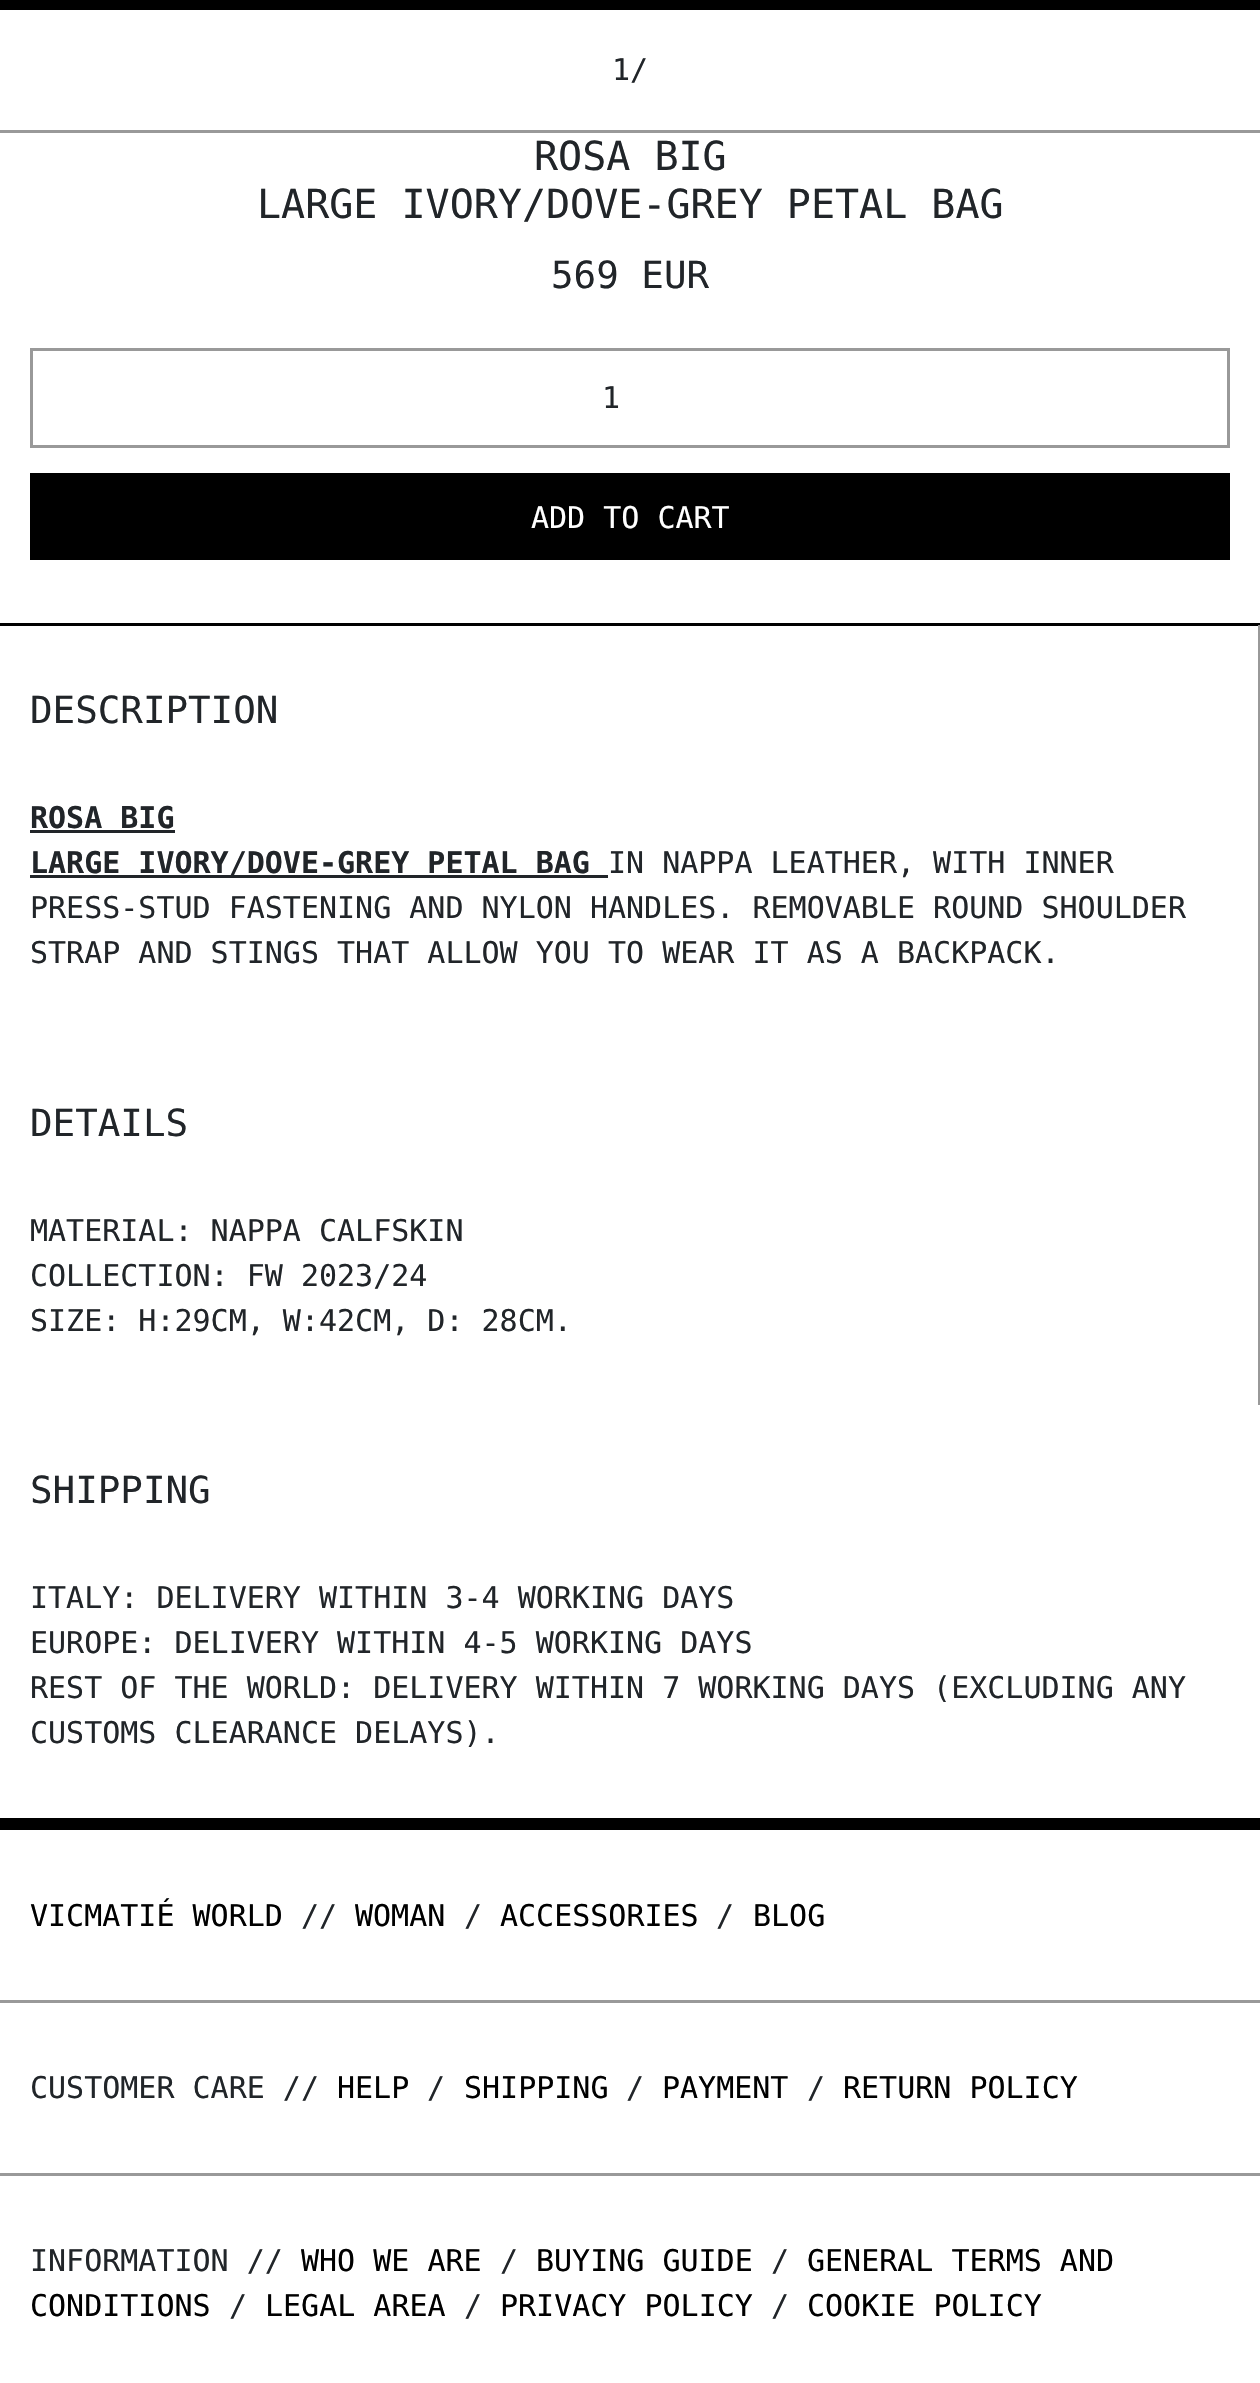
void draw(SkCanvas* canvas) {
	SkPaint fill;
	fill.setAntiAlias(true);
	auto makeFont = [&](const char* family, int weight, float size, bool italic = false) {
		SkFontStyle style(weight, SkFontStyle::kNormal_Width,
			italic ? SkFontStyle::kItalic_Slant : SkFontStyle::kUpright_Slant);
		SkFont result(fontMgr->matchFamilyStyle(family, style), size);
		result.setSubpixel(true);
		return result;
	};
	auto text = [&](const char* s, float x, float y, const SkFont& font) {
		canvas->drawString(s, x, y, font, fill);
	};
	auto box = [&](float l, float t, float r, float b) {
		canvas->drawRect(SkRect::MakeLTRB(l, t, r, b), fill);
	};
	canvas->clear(0xFFFFFFFF);
	fill.setColor(0xFF000000);
	box(0, 0, 1260, 10);
	fill.setColor(0xFF999999);
	box(0, 130, 1260, 133);
	fill.setStyle(SkPaint::kStroke_Style);
	fill.setStrokeWidth(3);
	canvas->drawRect(SkRect::MakeLTRB(31.5f, 349.5f, 1228.5f, 446.5f), fill);
	fill.setStyle(SkPaint::kFill_Style);
	fill.setColor(0xFF000000);
	box(30, 473, 1230, 560);
	box(0, 623, 1260, 626);
	box(0, 1818, 1260, 1830);
	fill.setColor(0xFF999999);
	box(1258, 625, 1260, 1405);
	fill.setColor(0xFF212529);
	box(30, 830, 175, 833);
	box(30, 875, 608, 878);
	fill.setColor(0xFF999999);
	box(0, 2000, 1260, 2003);
	box(0, 2173, 1260, 2176);
	auto font1 = makeFont("DejaVu Sans Mono", 400, 30);
	fill.setColor(0xFF212529);
	text("1/", 612, 80, font1);
	auto font2 = makeFont("DejaVu Sans Mono", 400, 40);
	text("ROSA BIG", 534, 170, font2);
	text("LARGE IVORY/DOVE-GREY PETAL BAG", 257, 218, font2);
	auto font3 = makeFont("DejaVu Sans Mono", 400, 37.5f);
	text("569 EUR", 551, 288, font3);
	text("1", 602, 408, font1);
	fill.setColor(0xFFFFFFFF);
	text("ADD TO CART", 531, 528, font1);
	fill.setColor(0xFF212529);
	text("DESCRIPTION", 30, 723, font3);
	auto font4 = makeFont("DejaVu Sans Mono", 700, 30);
	text("ROSA BIG", 30, 828, font4);
	text("LARGE IVORY/DOVE-GREY PETAL BAG", 30, 873, font4);
	text("IN NAPPA LEATHER, WITH INNER", 608, 873, font1);
	text("PRESS-STUD FASTENING AND NYLON HANDLES. REMOVABLE ROUND SHOULDER", 30, 918, font1);
	text("STRAP AND STINGS THAT ALLOW YOU TO WEAR IT AS A BACKPACK.", 30, 963, font1);
	text("DETAILS", 30, 1136, font3);
	text("MATERIAL: NAPPA CALFSKIN", 30, 1241, font1);
	text("COLLECTION: FW 2023/24", 30, 1286, font1);
	text("SIZE: H:29CM, W:42CM, D: 28CM.", 30, 1331, font1);
	text("SHIPPING", 30, 1503, font3);
	text("ITALY: DELIVERY WITHIN 3-4 WORKING DAYS", 30, 1608, font1);
	text("EUROPE: DELIVERY WITHIN 4-5 WORKING DAYS", 30, 1653, font1);
	text("REST OF THE WORLD: DELIVERY WITHIN 7 WORKING DAYS (EXCLUDING ANY", 30, 1698, font1);
	text("CUSTOMS CLEARANCE DELAYS).", 30, 1743, font1);
	fill.setColor(0xFF000000);
	text("VICMATIÉ WORLD", 30, 1926, font1);
	fill.setColor(0xFF212529);
	text("//", 301, 1926, font1);
	fill.setColor(0xFF000000);
	text("WOMAN", 355, 1926, font1);
	fill.setColor(0xFF212529);
	text("/", 464, 1926, font1);
	fill.setColor(0xFF000000);
	text("ACCESSORIES", 500, 1926, font1);
	fill.setColor(0xFF212529);
	text("/", 716, 1926, font1);
	fill.setColor(0xFF000000);
	text("BLOG", 753, 1926, font1);
	fill.setColor(0xFF212529);
	text("CUSTOMER CARE //", 30, 2098, font1);
	fill.setColor(0xFF000000);
	text("HELP", 337, 2098, font1);
	fill.setColor(0xFF212529);
	text("/", 427, 2098, font1);
	fill.setColor(0xFF000000);
	text("SHIPPING", 464, 2098, font1);
	fill.setColor(0xFF212529);
	text("/", 626, 2098, font1);
	fill.setColor(0xFF000000);
	text("PAYMENT", 662, 2098, font1);
	fill.setColor(0xFF212529);
	text("/", 807, 2098, font1);
	fill.setColor(0xFF000000);
	text("RETURN POLICY", 843, 2098, font1);
	fill.setColor(0xFF212529);
	text("INFORMATION //", 30, 2271, font1);
	fill.setColor(0xFF000000);
	text("WHO WE ARE", 301, 2271, font1);
	fill.setColor(0xFF212529);
	text("/", 500, 2271, font1);
	fill.setColor(0xFF000000);
	text("BUYING GUIDE", 536, 2271, font1);
	fill.setColor(0xFF212529);
	text("/", 771, 2271, font1);
	fill.setColor(0xFF000000);
	text("GENERAL TERMS AND", 807, 2271, font1);
	text("CONDITIONS", 30, 2316, font1);
	fill.setColor(0xFF212529);
	text("/", 229, 2316, font1);
	fill.setColor(0xFF000000);
	text("LEGAL AREA", 265, 2316, font1);
	fill.setColor(0xFF212529);
	text("/", 464, 2316, font1);
	fill.setColor(0xFF000000);
	text("PRIVACY POLICY", 500, 2316, font1);
	fill.setColor(0xFF212529);
	text("/", 771, 2316, font1);
	fill.setColor(0xFF000000);
	text("COOKIE POLICY", 807, 2316, font1);
}
